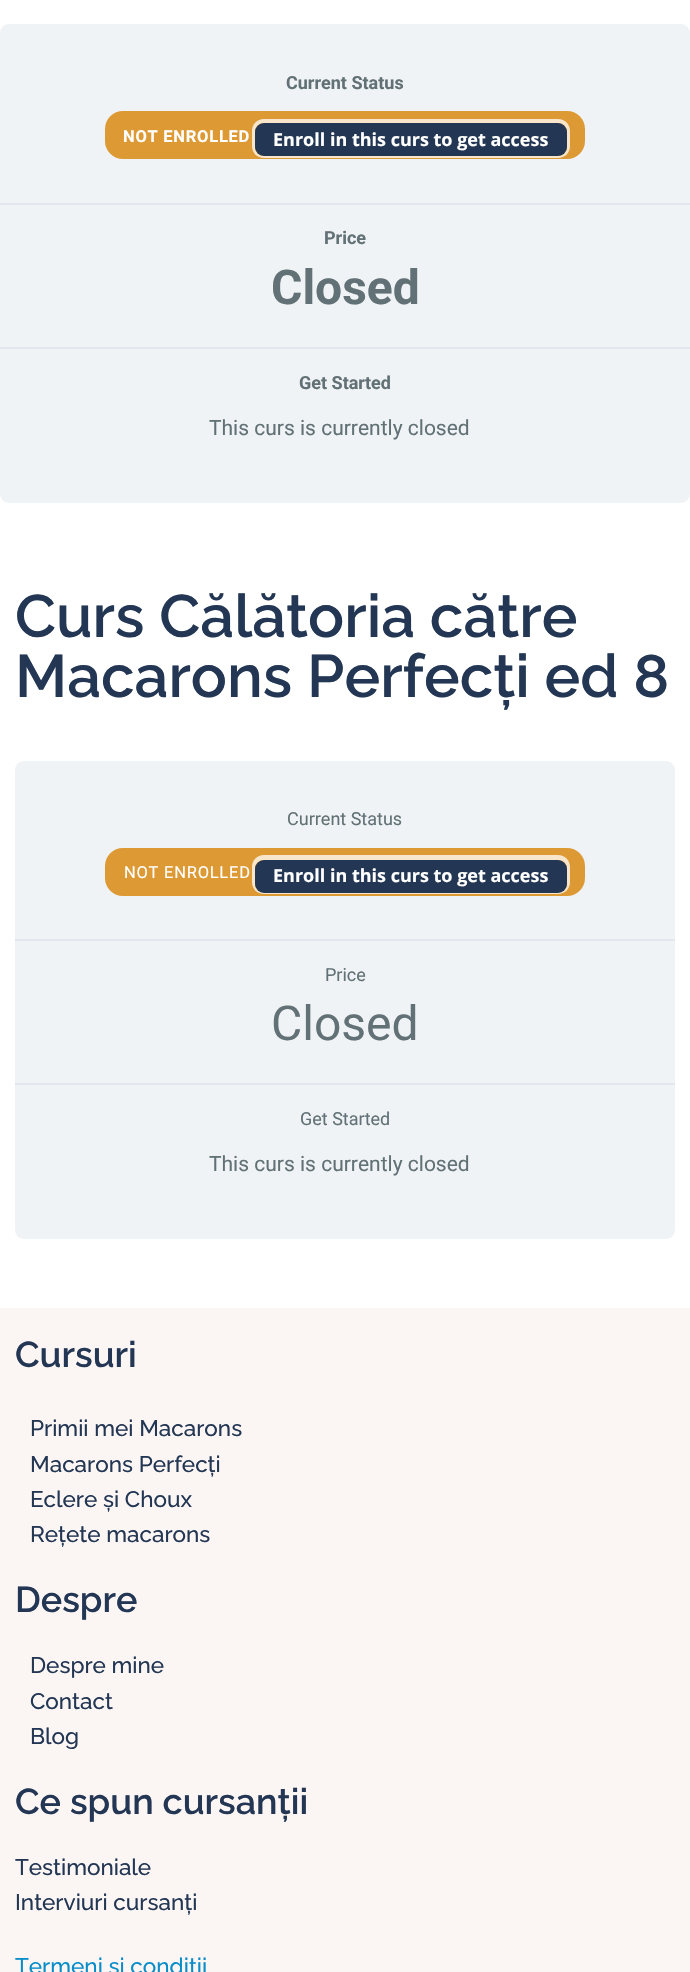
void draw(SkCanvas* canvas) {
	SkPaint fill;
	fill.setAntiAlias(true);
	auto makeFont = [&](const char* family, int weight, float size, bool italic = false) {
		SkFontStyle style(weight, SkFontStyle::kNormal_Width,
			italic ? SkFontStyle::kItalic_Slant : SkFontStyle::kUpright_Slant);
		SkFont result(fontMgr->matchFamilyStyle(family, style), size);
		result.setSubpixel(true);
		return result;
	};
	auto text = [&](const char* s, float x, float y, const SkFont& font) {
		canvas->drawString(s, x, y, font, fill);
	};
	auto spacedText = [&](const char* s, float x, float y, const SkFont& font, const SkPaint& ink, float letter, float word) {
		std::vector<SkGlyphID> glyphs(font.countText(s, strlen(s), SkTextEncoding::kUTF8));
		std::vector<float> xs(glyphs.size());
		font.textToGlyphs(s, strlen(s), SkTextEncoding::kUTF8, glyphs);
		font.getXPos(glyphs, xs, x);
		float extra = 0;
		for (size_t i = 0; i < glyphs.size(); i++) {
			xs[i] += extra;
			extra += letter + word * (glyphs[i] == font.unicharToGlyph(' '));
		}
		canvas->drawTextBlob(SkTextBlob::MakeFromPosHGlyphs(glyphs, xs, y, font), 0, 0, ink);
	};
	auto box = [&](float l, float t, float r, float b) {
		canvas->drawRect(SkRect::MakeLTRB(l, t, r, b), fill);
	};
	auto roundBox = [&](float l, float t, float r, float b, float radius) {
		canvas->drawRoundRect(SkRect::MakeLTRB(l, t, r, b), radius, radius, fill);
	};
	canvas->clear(0xFFFFFFFF);
	fill.setColor(0xFFF0F3F6);
	roundBox(0, 24, 690, 503, 9);
	fill.setColor(0xFFE2E7ED);
	box(0, 203, 690, 205);
	fill.setColor(0xFFDD9933);
	roundBox(105, 111, 585, 159, 18);
	fill.setColor(0xFFF7E6CC);
	canvas->drawPath(SkPathBuilder(SkPathFillType::kEvenOdd).moveTo(264, 119).cubicTo(257, 119, 252, 124, 252, 131).lineTo(252, 146).cubicTo(252, 153, 257, 158, 264, 158).lineTo(558, 158).cubicTo(565, 158, 570, 153, 570, 146).lineTo(570, 131).cubicTo(570, 124, 565, 119, 558, 119).close().moveTo(264, 123).cubicTo(259, 123, 255, 127, 255, 132).lineTo(255, 147).cubicTo(255, 152, 259, 156, 264, 156).lineTo(558, 156).cubicTo(563, 156, 567, 152, 567, 147).lineTo(567, 132).cubicTo(567, 127, 563, 123, 558, 123).close().detach(), fill);
	fill.setColor(0xFF233754);
	roundBox(255, 123, 567, 156, 9);
	fill.setColor(0xFFE2E7ED);
	box(0, 347, 690, 349);
	fill.setColor(0xFFF0F3F6);
	roundBox(15, 761, 675, 1239, 9);
	fill.setColor(0xFFE2E7ED);
	box(15, 939, 675, 941);
	fill.setColor(0xFFDD9933);
	roundBox(105, 848, 585, 896, 18);
	fill.setColor(0xFFF7E6CC);
	canvas->drawPath(SkPathBuilder(SkPathFillType::kEvenOdd).moveTo(264, 855).cubicTo(257, 855, 252, 860, 252, 867).lineTo(252, 882).cubicTo(252, 889, 257, 894, 264, 894).lineTo(558, 894).cubicTo(565, 894, 570, 889, 570, 882).lineTo(570, 867).cubicTo(570, 860, 565, 855, 558, 855).close().moveTo(264, 860).cubicTo(259, 860, 255, 864, 255, 868).lineTo(255, 884).cubicTo(255, 888, 259, 892, 264, 892).lineTo(558, 892).cubicTo(563, 892, 567, 888, 567, 884).lineTo(567, 868).cubicTo(567, 864, 563, 860, 558, 860).close().detach(), fill);
	fill.setColor(0xFF233754);
	roundBox(255, 860, 567, 893, 9);
	fill.setColor(0xFFE2E7ED);
	box(15, 1083, 675, 1085);
	fill.setColor(0xFFFBF5F3);
	box(0, 1308, 690, 1972);
	auto font1 = makeFont("Roboto", 700, 18);
	fill.setColor(0xFF617175);
	text("Current Status", 286, 89, font1);
	auto font2 = makeFont("Roboto", 700, 16.5f);
	fill.setColor(0xFFFFFFFF);
	spacedText("NOT ENROLLED", 123, 142, font2, fill, 0.75f, 0);
	auto font3 = makeFont("Open Sans", 700, 18);
	text("Enroll in this curs to get access", 273, 146, font3);
	fill.setColor(0xFF617175);
	text("Price", 324, 244, font1);
	auto font4 = makeFont("Roboto", 700, 48);
	text("Closed", 271, 304, font4);
	text("Get Started", 299, 389, font1);
	auto font5 = makeFont("Roboto", 400, 21);
	text("This curs is currently closed", 209, 435, font5);
	auto font6 = makeFont("Raleway", 600, 60);
	fill.setColor(0xFF233754);
	text("Curs Călătoria către", 15, 637, font6);
	text("Macarons Perfecți ed 8", 15, 697, font6);
	auto font7 = makeFont("Roboto", 400, 18);
	fill.setColor(0xFF617175);
	text("Current Status", 287, 825, font7);
	auto font8 = makeFont("Roboto", 400, 16.5f);
	fill.setColor(0xFFFFFFFF);
	spacedText("NOT ENROLLED", 124, 878, font8, fill, 0.75f, 0);
	text("Enroll in this curs to get access", 273, 882, font3);
	fill.setColor(0xFF617175);
	text("Price", 325, 981, font7);
	auto font9 = makeFont("Roboto", 400, 48);
	text("Closed", 271, 1040, font9);
	text("Get Started", 300, 1125, font7);
	text("This curs is currently closed", 209, 1171, font5);
	auto font10 = makeFont("Raleway", 600, 36);
	fill.setColor(0xFF233754);
	text("Cursuri", 15, 1367, font10);
	auto font11 = makeFont("Raleway", 500, 22.5f);
	text("Primii mei Macarons", 30, 1436, font11);
	text("Macarons Perfecți", 30, 1472, font11);
	text("Eclere și Choux", 30, 1507, font11);
	text("Rețete macarons", 30, 1542, font11);
	text("Despre", 15, 1612, font10);
	text("Despre mine", 30, 1673, font11);
	text("Contact", 30, 1709, font11);
	text("Blog", 30, 1744, font11);
	text("Ce spun cursanții", 15, 1814, font10);
	text("Testimoniale", 15, 1875, font11);
	text("Interviuri cursanți", 15, 1910, font11);
	fill.setColor(0xFF088DC9);
	text("Termeni și condiții", 15, 1974, font11);
}
